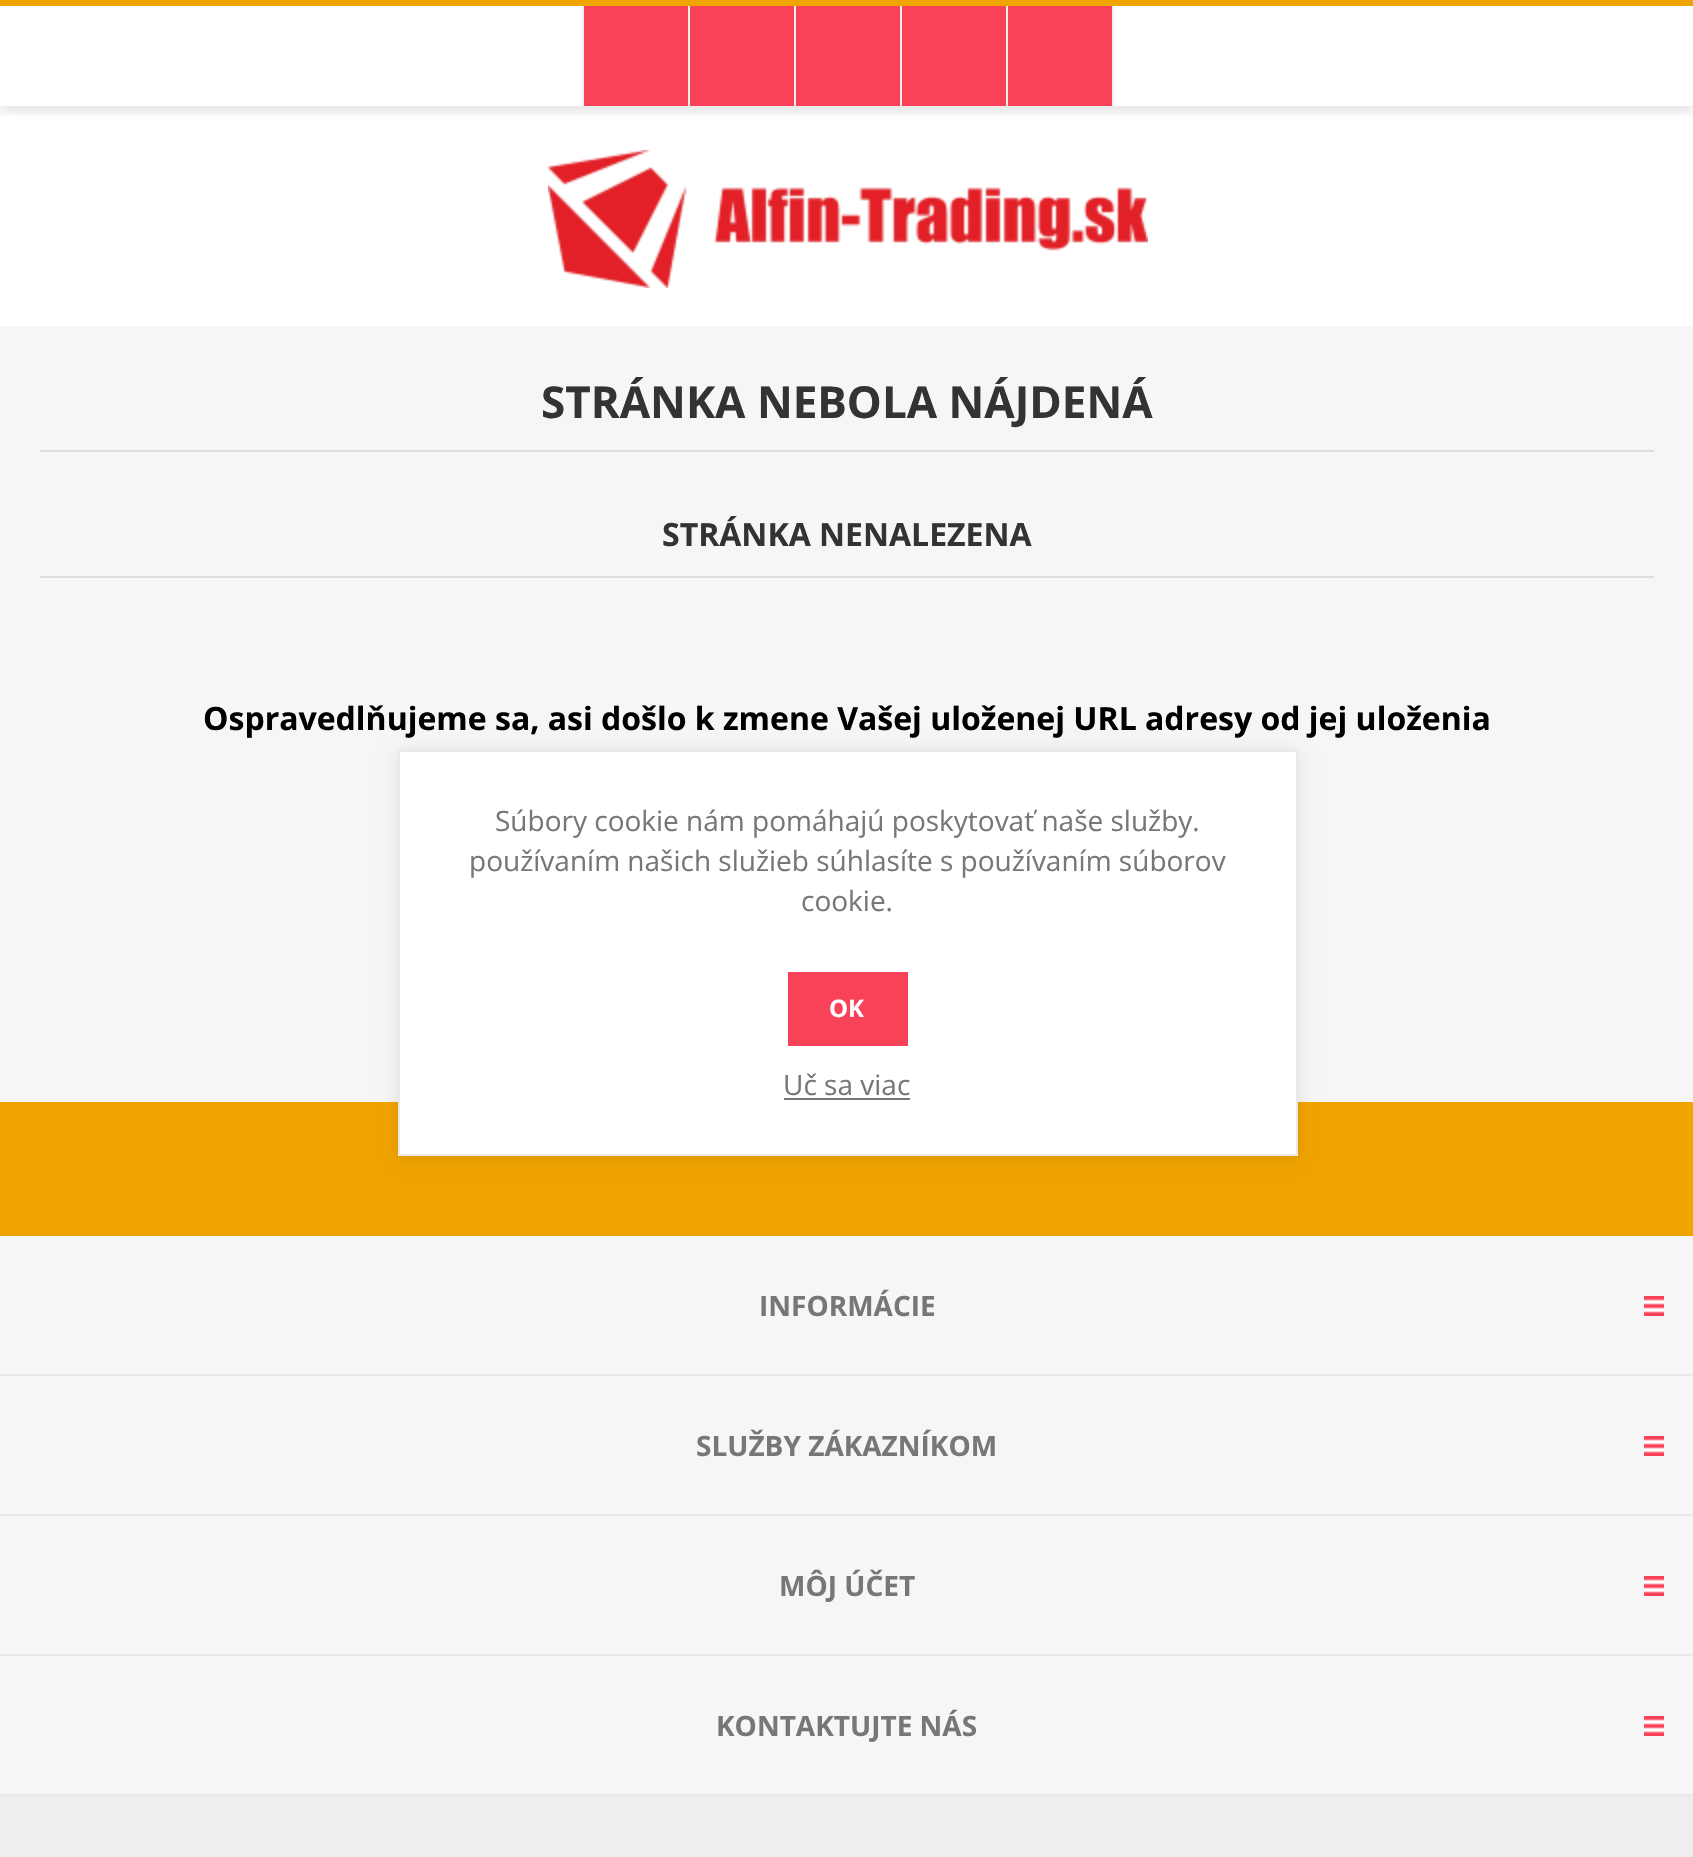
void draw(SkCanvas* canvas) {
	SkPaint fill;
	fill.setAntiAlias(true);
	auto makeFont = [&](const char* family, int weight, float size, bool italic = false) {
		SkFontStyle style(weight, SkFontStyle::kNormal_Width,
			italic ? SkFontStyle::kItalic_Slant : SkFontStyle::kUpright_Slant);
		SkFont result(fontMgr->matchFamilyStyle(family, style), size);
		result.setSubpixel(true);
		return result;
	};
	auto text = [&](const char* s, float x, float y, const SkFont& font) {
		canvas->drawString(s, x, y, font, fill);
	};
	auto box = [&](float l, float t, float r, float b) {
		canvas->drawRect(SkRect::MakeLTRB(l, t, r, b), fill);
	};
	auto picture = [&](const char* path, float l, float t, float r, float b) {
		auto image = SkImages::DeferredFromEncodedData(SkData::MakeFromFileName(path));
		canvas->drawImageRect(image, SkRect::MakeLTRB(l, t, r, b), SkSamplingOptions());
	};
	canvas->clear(0xFFFFFFFF);
	fill.setColor(0xFFF6F6F6);
	box(0, 326, 1693, 1794);
	canvas->save();
	canvas->clipRect(SkRect::MakeLTRB(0, 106, 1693, 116));
	fill.setColor(0x1A000000);
	fill.setMaskFilter(SkMaskFilter::MakeBlur(kNormal_SkBlurStyle, 5));
	canvas->drawRect(SkRect::MakeLTRB(0, 6, 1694, 112), fill);
	fill.setMaskFilter(nullptr);
	canvas->restore();
	fill.setColor(0xFFF0A400);
	box(0, 0, 1693, 6);
	fill.setColor(0xFFF74258);
	box(584, 6, 688, 106);
	fill.setColor(0xFFEEEEEE);
	box(688, 6, 690, 106);
	box(582, 6, 584, 106);
	fill.setColor(0xFFF74258);
	box(690, 6, 794, 106);
	fill.setColor(0xFFEEEEEE);
	box(794, 6, 796, 106);
	fill.setColor(0xFFF74258);
	box(796, 6, 900, 106);
	fill.setColor(0xFFEEEEEE);
	box(900, 6, 902, 106);
	fill.setColor(0xFFF74258);
	box(902, 6, 1006, 106);
	fill.setColor(0xFFEEEEEE);
	box(1006, 6, 1008, 106);
	fill.setColor(0xFFF74258);
	box(1008, 6, 1112, 106);
	fill.setColor(0xFFEEEEEE);
	box(1112, 6, 1114, 106);
	picture("image0.png", 548, 150, 1148, 288);
	fill.setColor(0xFFDDDDDD);
	box(40, 450, 1654, 452);
	box(40, 576, 1654, 578);
	fill.setColor(0xFFF0A400);
	box(0, 1102, 1693, 1236);
	fill.setColor(0xFFE9E9E9);
	box(0, 1374, 1693, 1376);
	fill.setColor(0xFFF74258);
	box(1644, 1296, 1664, 1316);
	picture("image1.png", 1644, 1299, 1664, 1313);
	fill.setColor(0xFFE9E9E9);
	box(0, 1514, 1693, 1516);
	fill.setColor(0xFFF74258);
	box(1644, 1436, 1664, 1456);
	picture("image1.png", 1644, 1439, 1664, 1453);
	fill.setColor(0xFFE9E9E9);
	box(0, 1654, 1693, 1656);
	fill.setColor(0xFFF74258);
	box(1644, 1576, 1664, 1596);
	picture("image1.png", 1644, 1579, 1664, 1593);
	fill.setColor(0xFFE9E9E9);
	box(0, 1794, 1693, 1796);
	fill.setColor(0xFFF74258);
	box(1644, 1716, 1664, 1736);
	picture("image1.png", 1644, 1719, 1664, 1733);
	fill.setColor(0xFFEEEEEE);
	box(0, 1796, 1693, 1857);
	fill.setColor(0x1A000000);
	fill.setMaskFilter(SkMaskFilter::MakeBlur(kNormal_SkBlurStyle, 8));
	canvas->drawRect(SkRect::MakeLTRB(398, 752, 1298, 1158), fill);
	fill.setMaskFilter(nullptr);
	fill.setColor(0xFFFFFFFF);
	canvas->drawRect(SkRect::MakeLTRB(399, 751, 1297, 1155), fill);
	fill.setStyle(SkPaint::kStroke_Style);
	fill.setStrokeWidth(2);
	fill.setColor(0xFFE9E9E9);
	canvas->drawRect(SkRect::MakeLTRB(399, 751, 1297, 1155), fill);
	fill.setStyle(SkPaint::kFill_Style);
	fill.setColor(0xFFF74258);
	box(788, 972, 908, 1046);
	fill.setColor(0xFF777777);
	box(784, 1098, 910, 1100);
	auto font1 = makeFont("Open Sans", 700, 44);
	fill.setColor(0xFF333333);
	text("STRÁNKA NEBOLA NÁJDENÁ", 541, 418, font1);
	auto font2 = makeFont("Open Sans", 700, 32);
	text("STRÁNKA NENALEZENA", 662, 546, font2);
	fill.setColor(0xFF000000);
	text("Ospravedlňujeme sa, asi došlo k zmene Vašej uloženej URL adresy od jej uloženia", 203, 730, font2);
	auto font3 = makeFont("Open Sans", 700, 28);
	fill.setColor(0xFF777777);
	text("INFORMÁCIE", 759, 1316, font3);
	text("SLUŽBY ZÁKAZNÍKOM", 696, 1456, font3);
	text("MÔJ ÚČET", 779, 1596, font3);
	text("KONTAKTUJTE NÁS", 716, 1736, font3);
	auto font4 = makeFont("Open Sans", 400, 28);
	text("Súbory cookie nám pomáhajú poskytovať naše služby.", 495, 831, font4);
	text("používaním našich služieb súhlasíte s používaním súborov", 469, 871, font4);
	text("cookie.", 801, 911, font4);
	auto font5 = makeFont("Open Sans", 700, 24);
	fill.setColor(0xFFFFFFFF);
	text("OK", 829, 1017, font5);
	fill.setColor(0xFF777777);
	text("Uč sa viac", 783, 1095, font4);
}
